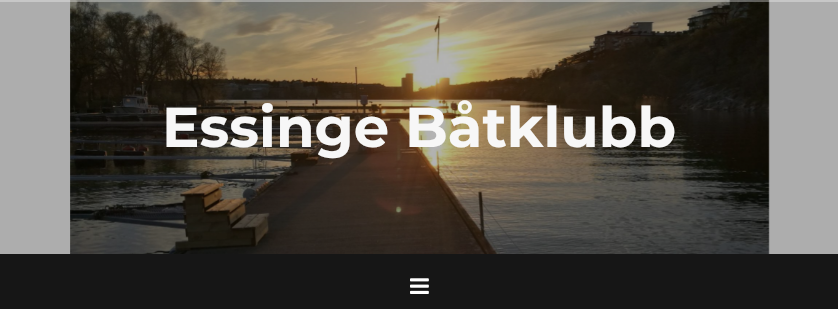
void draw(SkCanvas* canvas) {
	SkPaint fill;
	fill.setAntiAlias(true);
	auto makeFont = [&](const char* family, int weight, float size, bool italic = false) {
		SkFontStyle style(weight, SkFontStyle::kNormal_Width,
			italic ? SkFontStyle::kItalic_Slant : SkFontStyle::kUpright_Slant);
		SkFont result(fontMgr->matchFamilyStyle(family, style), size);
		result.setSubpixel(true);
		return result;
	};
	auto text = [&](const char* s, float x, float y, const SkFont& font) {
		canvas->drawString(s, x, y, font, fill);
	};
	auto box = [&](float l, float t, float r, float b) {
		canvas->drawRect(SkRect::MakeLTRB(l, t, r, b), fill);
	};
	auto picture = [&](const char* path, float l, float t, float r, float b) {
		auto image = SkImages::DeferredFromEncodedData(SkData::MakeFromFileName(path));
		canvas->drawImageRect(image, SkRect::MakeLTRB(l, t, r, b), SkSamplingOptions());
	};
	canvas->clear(0xFFADADAD);
	picture("image0.png", 70, 0, 770, 254);
	fill.setColor(0x26FFFFFF);
	box(0, 0, 838, 2);
	fill.setColor(0x33FFFFFF);
	box(0, 0, 838, 1);
	box(0, 1, 838, 2);
	fill.setColor(0xFF161616);
	box(0, 254, 838, 309);
	picture("image1.png", 410, 278, 429, 294);
	auto font1 = makeFont("Montserrat", 700, 56);
	fill.setColor(0xFFF7F7F7);
	text("Essinge Båtklubb", 162, 147, font1);
}
